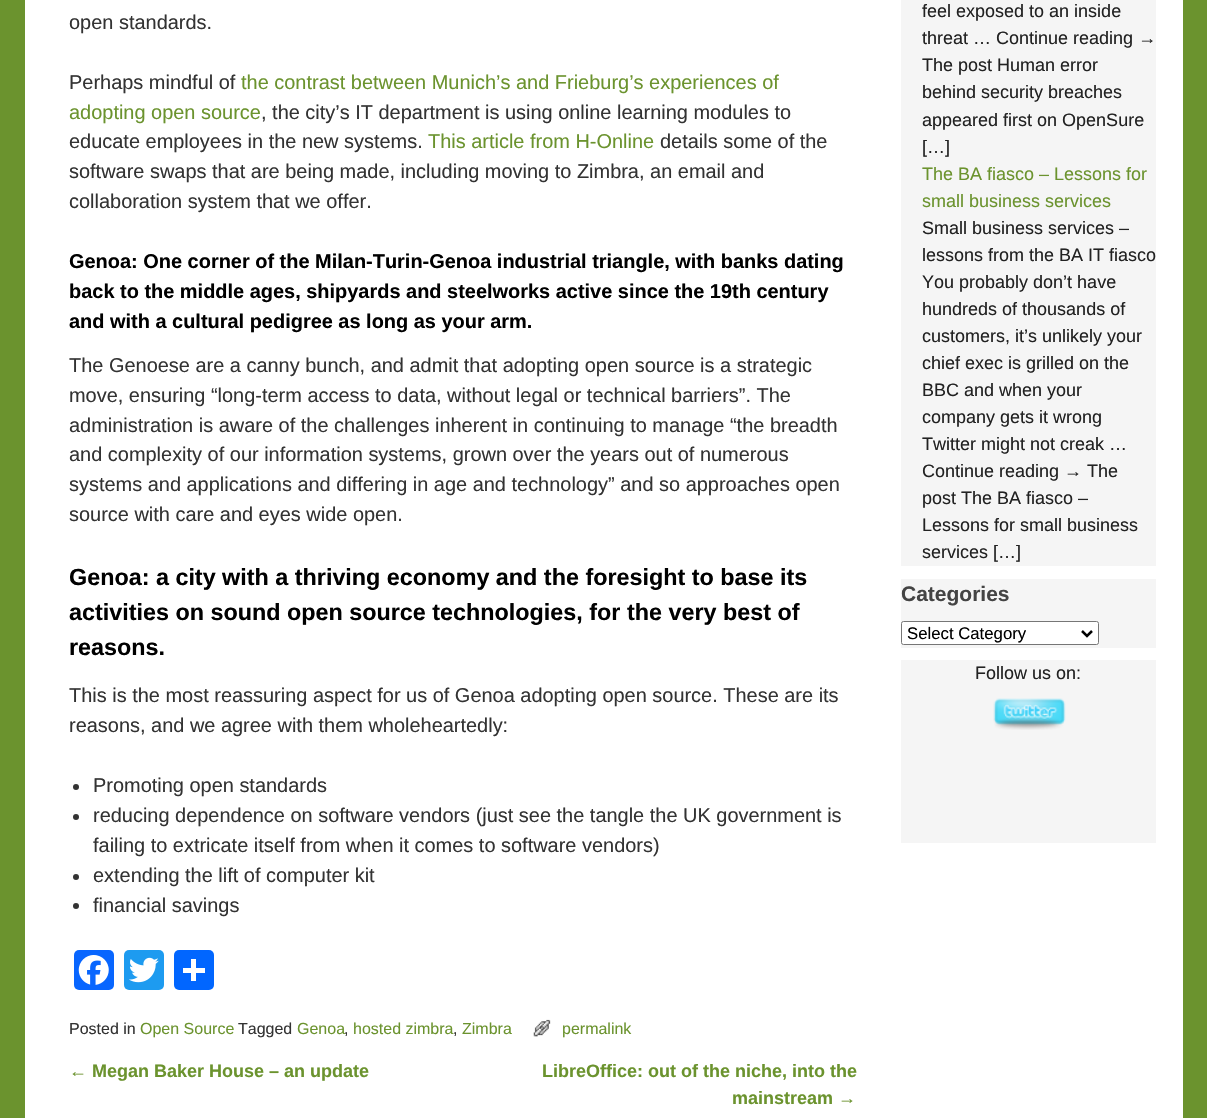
void draw(SkCanvas* canvas) {
	SkPaint fill;
	fill.setAntiAlias(true);
	auto makeFont = [&](const char* family, int weight, float size, bool italic = false) {
		SkFontStyle style(weight, SkFontStyle::kNormal_Width,
			italic ? SkFontStyle::kItalic_Slant : SkFontStyle::kUpright_Slant);
		SkFont result(fontMgr->matchFamilyStyle(family, style), size);
		result.setSubpixel(true);
		return result;
	};
	auto text = [&](const char* s, float x, float y, const SkFont& font) {
		canvas->drawString(s, x, y, font, fill);
	};
	auto box = [&](float l, float t, float r, float b) {
		canvas->drawRect(SkRect::MakeLTRB(l, t, r, b), fill);
	};
	auto roundBox = [&](float l, float t, float r, float b, float radius) {
		canvas->drawRoundRect(SkRect::MakeLTRB(l, t, r, b), radius, radius, fill);
	};
	auto picture = [&](const char* path, float l, float t, float r, float b) {
		auto image = SkImages::DeferredFromEncodedData(SkData::MakeFromFileName(path));
		canvas->drawImageRect(image, SkRect::MakeLTRB(l, t, r, b), SkSamplingOptions());
	};
	canvas->clear(0xFF6B932E);
	fill.setColor(0xFFFFFFFF);
	box(25, 0, 1183, 1118);
	fill.setColor(0xFF333333);
	canvas->drawCircle(76, 787, 3, fill);
	canvas->drawCircle(76, 817, 3, fill);
	canvas->drawCircle(76, 877, 3, fill);
	canvas->drawCircle(76, 906, 3, fill);
	fill.setColor(0xFF0866FF);
	roundBox(74, 950, 114, 990, 5);
	picture("image0.png", 78, 955, 109, 985);
	fill.setColor(0xFF1D9BF0);
	roundBox(124, 950, 164, 990, 5);
	picture("image1.png", 129, 957, 159, 983);
	fill.setColor(0xFF0166FF);
	roundBox(174, 950, 214, 990, 5);
	fill.setColor(0xFFFFFFFF);
	box(191, 959, 196, 981);
	box(183, 968, 205, 973);
	picture("image2.png", 533, 1019, 551, 1037);
	fill.setColor(0xFFF5F5F5);
	box(901, 0, 1156, 566);
	box(901, 579, 1156, 648);
	fill.setColor(0xFFFFFFFF);
	canvas->drawRoundRect(SkRect::MakeLTRB(901.5f, 621.5f, 1098.5f, 644.5f), 2, 2, fill);
	fill.setStyle(SkPaint::kStroke_Style);
	fill.setStrokeWidth(1);
	fill.setColor(0xFF767676);
	canvas->drawRoundRect(SkRect::MakeLTRB(901.5f, 621.5f, 1098.5f, 644.5f), 2, 2, fill);
	fill.setStrokeWidth(2.5f);
	fill.setColor(0xFF000000);
	canvas->drawPath(SkPathBuilder().moveTo(1082, 631).lineTo(1087, 636).lineTo(1092, 631).detach(), fill);
	fill.setStyle(SkPaint::kFill_Style);
	fill.setColor(0xFFF5F5F5);
	box(901, 660, 1156, 843);
	picture("image3.png", 993, 698, 1066, 730);
	auto font1 = makeFont("Liberation Sans", 400, 19.95f);
	fill.setColor(0xFF333333);
	text("open standards.", 69, 29, font1);
	text("Perhaps mindful of", 69, 89, font1);
	fill.setColor(0xFF6B932E);
	text("the contrast between Munich’s and Frieburg’s experiences of", 241, 89, font1);
	text("adopting open source", 69, 119, font1);
	fill.setColor(0xFF333333);
	text(", the city’s IT department is using online learning modules to", 261, 119, font1);
	text("educate employees in the new systems.", 69, 148, font1);
	fill.setColor(0xFF6B932E);
	text("This article from H-Online", 428, 148, font1);
	fill.setColor(0xFF333333);
	text("details some of the", 660, 148, font1);
	text("software swaps that are being made, including moving to Zimbra, an email and", 69, 178, font1);
	text("collaboration system that we offer.", 69, 208, font1);
	auto font2 = makeFont("Liberation Sans", 700, 19.95f);
	fill.setColor(0xFF000000);
	text("Genoa: One corner of the Milan-Turin-Genoa industrial triangle, with banks dating", 69, 268, font2);
	text("back to the middle ages, shipyards and steelworks active since the 19th century", 69, 298, font2);
	text("and with a cultural pedigree as long as your arm.", 69, 328, font2);
	fill.setColor(0xFF333333);
	text("The Genoese are a canny bunch, and admit that adopting open source is a strategic", 69, 372, font1);
	text("move, ensuring “long-term access to data, without legal or technical barriers”. The", 69, 402, font1);
	text("administration is aware of the challenges inherent in continuing to manage “the breadth", 69, 432, font1);
	text("and complexity of our information systems, grown over the years out of numerous", 69, 461, font1);
	text("systems and applications and differing in age and technology” and so approaches open", 69, 491, font1);
	text("source with care and eyes wide open.", 69, 521, font1);
	auto font3 = makeFont("Liberation Sans", 700, 23.35f);
	fill.setColor(0xFF000000);
	text("Genoa: a city with a thriving economy and the foresight to base its", 69, 585, font3);
	text("activities on sound open source technologies, for the very best of", 69, 620, font3);
	text("reasons.", 69, 655, font3);
	fill.setColor(0xFF333333);
	text("This is the most reassuring aspect for us of Genoa adopting open source. These are its", 69, 702, font1);
	text("reasons, and we agree with them wholeheartedly:", 69, 732, font1);
	text("Promoting open standards", 93, 792, font1);
	text("reducing dependence on software vendors (just see the tangle the UK government is", 93, 822, font1);
	text("failing to extricate itself from when it comes to software vendors)", 93, 852, font1);
	text("extending the lift of computer kit", 93, 882, font1);
	text("financial savings", 93, 912, font1);
	auto font4 = makeFont("Liberation Sans", 400, 16);
	text("Posted in", 69, 1034, font4);
	fill.setColor(0xFF6B932E);
	text("Open Source", 140, 1034, font4);
	fill.setColor(0xFF333333);
	text("Tagged", 238, 1034, font4);
	fill.setColor(0xFF6B932E);
	text("Genoa", 297, 1034, font4);
	fill.setColor(0xFF333333);
	text(",", 344, 1034, font4);
	fill.setColor(0xFF6B932E);
	text("hosted zimbra", 353, 1034, font4);
	fill.setColor(0xFF333333);
	text(",", 453, 1034, font4);
	fill.setColor(0xFF6B932E);
	text("Zimbra", 462, 1034, font4);
	text("permalink", 562, 1034, font4);
	auto font5 = makeFont("Liberation Sans", 400, 18);
	text("←", 69, 1077, font5);
	auto font6 = makeFont("Liberation Sans", 700, 18);
	text("Megan Baker House – an update", 92, 1077, font6);
	text("LibreOffice: out of the niche, into the", 542, 1077, font6);
	text("mainstream", 732, 1104, font6);
	text("→", 838, 1104, font5);
	fill.setColor(0xFF222222);
	text("feel exposed to an inside", 922, 17, font5);
	text("threat … Continue reading →", 922, 44, font5);
	text("The post Human error", 922, 71, font5);
	text("behind security breaches", 922, 98, font5);
	text("appeared first on OpenSure", 922, 126, font5);
	text("[…]", 922, 153, font5);
	fill.setColor(0xFF6B932E);
	text("The BA fiasco – Lessons for", 922, 180, font5);
	text("small business services", 922, 207, font5);
	fill.setColor(0xFF222222);
	text("Small business services –", 922, 234, font5);
	text("lessons from the BA IT fiasco", 922, 261, font5);
	text("You probably don’t have", 922, 288, font5);
	text("hundreds of thousands of", 922, 315, font5);
	text("customers, it’s unlikely your", 922, 342, font5);
	text("chief exec is grilled on the", 922, 369, font5);
	text("BBC and when your", 922, 396, font5);
	text("company gets it wrong", 922, 423, font5);
	text("Twitter might not creak …", 922, 450, font5);
	text("Continue reading → The", 922, 477, font5);
	text("post The BA fiasco –", 922, 504, font5);
	text("Lessons for small business", 922, 531, font5);
	text("services […]", 922, 558, font5);
	auto font7 = makeFont("Liberation Sans", 700, 21);
	fill.setColor(0xFF444444);
	text("Categories", 901, 601, font7);
	auto font8 = makeFont("Liberation Sans", 400, 16.75f);
	fill.setColor(0xFF000000);
	text("Select Category", 907, 639, font8);
	fill.setColor(0xFF222222);
	text("Follow us on:", 975, 679, font5);
}
